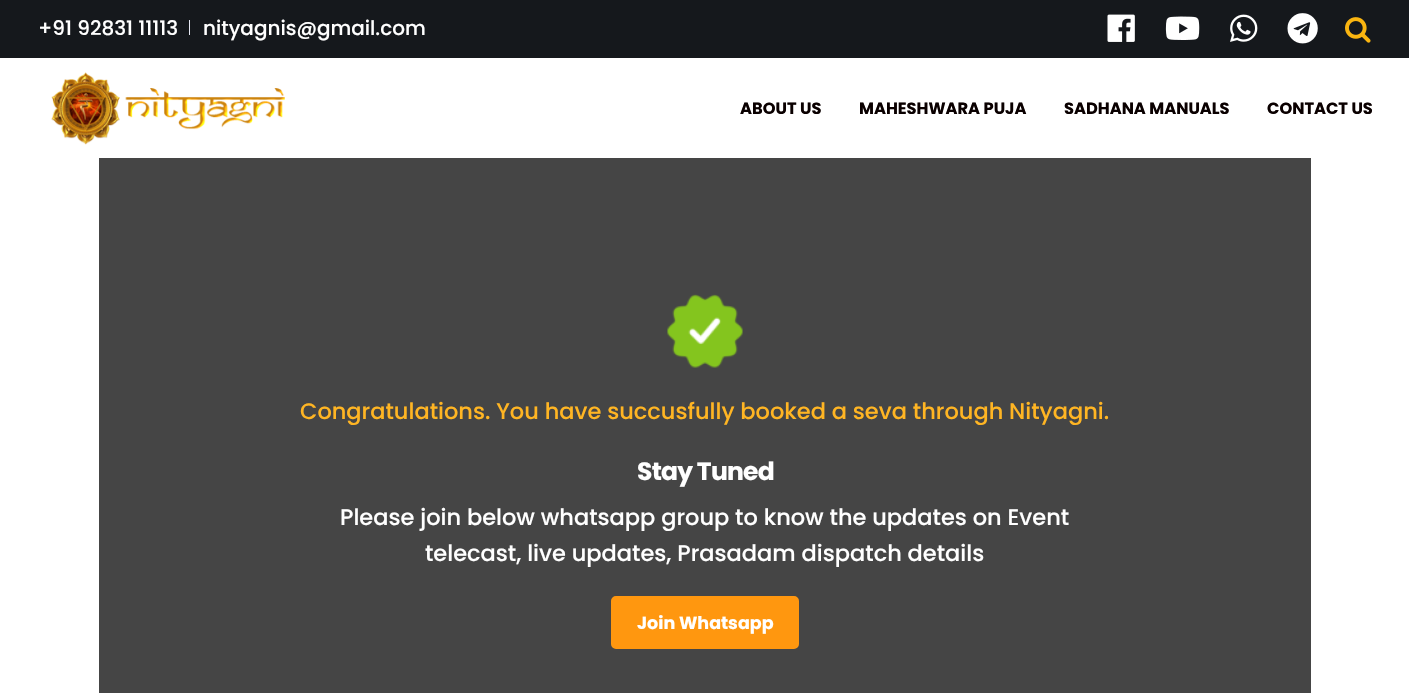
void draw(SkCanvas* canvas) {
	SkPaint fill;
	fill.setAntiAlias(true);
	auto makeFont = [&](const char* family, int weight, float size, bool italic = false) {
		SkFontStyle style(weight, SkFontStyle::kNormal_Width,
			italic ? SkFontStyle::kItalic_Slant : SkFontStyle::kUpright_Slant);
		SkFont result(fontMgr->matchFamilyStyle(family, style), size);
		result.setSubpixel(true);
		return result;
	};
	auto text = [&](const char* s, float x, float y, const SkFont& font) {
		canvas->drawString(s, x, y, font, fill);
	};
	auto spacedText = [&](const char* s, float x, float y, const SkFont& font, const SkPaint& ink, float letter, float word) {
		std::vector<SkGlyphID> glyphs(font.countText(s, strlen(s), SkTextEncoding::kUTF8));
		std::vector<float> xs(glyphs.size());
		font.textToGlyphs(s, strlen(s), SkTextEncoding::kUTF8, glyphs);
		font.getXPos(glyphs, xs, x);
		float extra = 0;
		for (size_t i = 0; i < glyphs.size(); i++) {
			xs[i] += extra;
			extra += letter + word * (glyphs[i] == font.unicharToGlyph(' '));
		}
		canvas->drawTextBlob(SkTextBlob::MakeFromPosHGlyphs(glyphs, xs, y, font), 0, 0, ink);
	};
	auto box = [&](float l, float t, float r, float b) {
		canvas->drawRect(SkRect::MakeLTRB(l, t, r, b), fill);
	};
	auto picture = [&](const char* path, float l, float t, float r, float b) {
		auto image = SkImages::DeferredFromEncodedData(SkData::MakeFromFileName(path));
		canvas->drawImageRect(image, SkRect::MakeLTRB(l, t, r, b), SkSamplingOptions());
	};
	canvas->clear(0xFFFFFFFF);
	fill.setColor(0xFF15181C);
	box(0, 0, 1409, 58);
	fill.setColor(0xFFE5E7F2);
	box(189, 20, 190, 35);
	picture("image0.png", 1107, 14, 1135, 42);
	picture("image1.png", 1165, 16, 1200, 40);
	picture("image2.png", 1230, 14, 1258, 42);
	picture("image3.png", 1287, 13, 1318, 44);
	picture("image4.png", 1345, 17, 1371, 43);
	picture("image5.png", 51, 72, 285, 145);
	fill.setColor(0xFF454545);
	box(99, 158, 1311, 693);
	picture("image6.png", 667, 294, 743, 368);
	fill.setColor(0xFFFF970F);
	canvas->drawRoundRect(SkRect::MakeLTRB(612.5f, 597.5f, 797.5f, 647.5f), 3.5f, 3.5f, fill);
	fill.setStyle(SkPaint::kStroke_Style);
	fill.setStrokeWidth(3);
	canvas->drawRoundRect(SkRect::MakeLTRB(612.5f, 597.5f, 797.5f, 647.5f), 3.5f, 3.5f, fill);
	auto font1 = makeFont("Poppins", 500, 20);
	fill.setStyle(SkPaint::kFill_Style);
	fill.setColor(0xFFFFFFFF);
	text("+91 92831 11113", 38, 35, font1);
	text("nityagnis@gmail.com", 203, 35, font1);
	auto font2 = makeFont("Poppins", 700, 16.25f);
	fill.setColor(0xFF0A0000);
	text("ABOUT US", 740, 114, font2);
	text("MAHESHWARA PUJA", 859, 114, font2);
	text("SADHANA MANUALS", 1064, 114, font2);
	text("CONTACT US", 1267, 114, font2);
	auto font3 = makeFont("Poppins", 500, 22.5f);
	fill.setColor(0xFFFFB523);
	text("Congratulations. You have succusfully booked a seva through Nityagni.", 300, 419, font3);
	auto font4 = makeFont("Poppins", 700, 25);
	fill.setColor(0xFFFFFFFF);
	spacedText("Stay Tuned", 637, 480, font4, fill, -0.75f, 0);
	text("Please join below whatsapp group to know the updates on Event", 340, 525, font3);
	text("telecast, live updates, Prasadam dispatch details", 425, 561, font3);
	auto font5 = makeFont("Poppins", 700, 17.5f);
	text("Join Whatsapp", 637, 629, font5);
}
